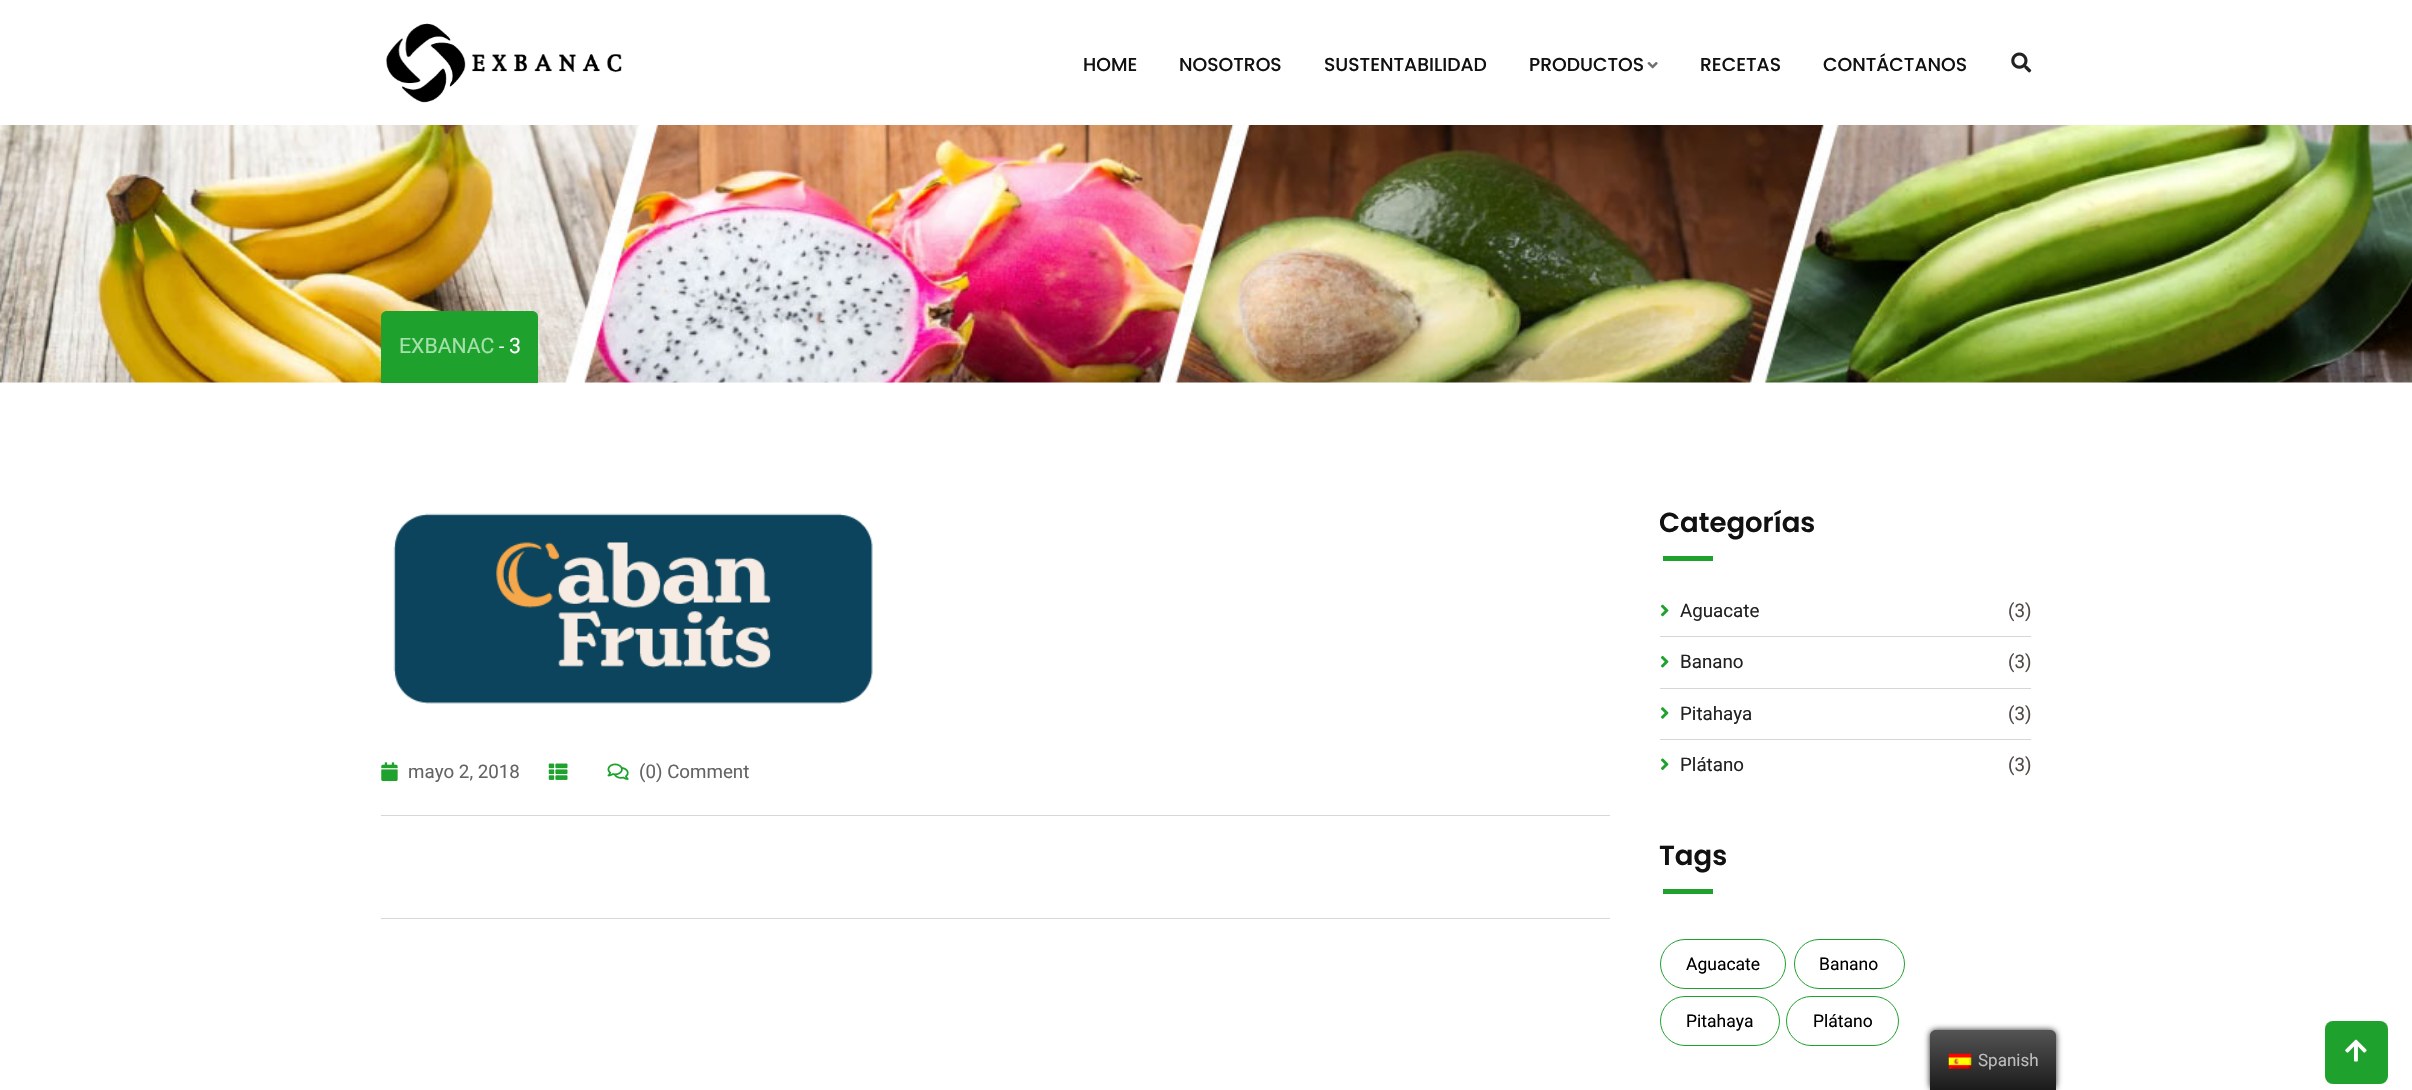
void draw(SkCanvas* canvas) {
	SkPaint fill;
	fill.setAntiAlias(true);
	auto makeFont = [&](const char* family, int weight, float size, bool italic = false) {
		SkFontStyle style(weight, SkFontStyle::kNormal_Width,
			italic ? SkFontStyle::kItalic_Slant : SkFontStyle::kUpright_Slant);
		SkFont result(fontMgr->matchFamilyStyle(family, style), size);
		result.setSubpixel(true);
		return result;
	};
	auto text = [&](const char* s, float x, float y, const SkFont& font) {
		canvas->drawString(s, x, y, font, fill);
	};
	auto box = [&](float l, float t, float r, float b) {
		canvas->drawRect(SkRect::MakeLTRB(l, t, r, b), fill);
	};
	auto roundBox = [&](float l, float t, float r, float b, float radius) {
		canvas->drawRoundRect(SkRect::MakeLTRB(l, t, r, b), radius, radius, fill);
	};
	auto picture = [&](const char* path, float l, float t, float r, float b) {
		auto image = SkImages::DeferredFromEncodedData(SkData::MakeFromFileName(path));
		canvas->drawImageRect(image, SkRect::MakeLTRB(l, t, r, b), SkSamplingOptions());
	};
	canvas->clear(0xFFFFFFFF);
	picture("image0.png", 386, 23, 622, 103);
	picture("image1.png", 1647, 62, 1658, 69);
	picture("image2.png", 2011, 52, 2032, 73);
	picture("image3.png", 0, 125, 2412, 383);
	fill.setColor(0xFF1FA12E);
	canvas->drawPath(SkPathBuilder().moveTo(387, 311).lineTo(532, 311).cubicTo(535.5f, 311, 538, 313.5f, 538, 317).lineTo(538, 383).lineTo(381, 383).lineTo(381, 317).cubicTo(381, 313.5f, 383.5f, 311, 387, 311).close().detach(), fill);
	picture("image4.png", 393, 513, 873, 704);
	fill.setColor(0xFFD7D7D7);
	box(381, 815, 1610, 816);
	picture("image5.png", 381, 762, 398, 782);
	picture("image6.png", 548, 763, 568, 780);
	picture("image7.png", 607, 763, 629, 780);
	box(381, 918, 1610, 919);
	fill.setColor(0xFF1FA12E);
	box(1663, 556, 1713, 561);
	fill.setColor(0xFFD6D6D6);
	box(1660, 636, 2031, 637);
	picture("image8.png", 1661, 604, 1669, 617);
	box(1660, 688, 2031, 689);
	picture("image9.png", 1661, 655, 1669, 668);
	box(1660, 739, 2031, 740);
	picture("image10.png", 1661, 707, 1669, 719);
	picture("image11.png", 1661, 758, 1669, 770);
	fill.setColor(0xFF1FA12E);
	box(1663, 889, 1713, 894);
	fill.setStyle(SkPaint::kStroke_Style);
	fill.setStrokeWidth(1);
	canvas->drawRoundRect(SkRect::MakeLTRB(1660.5f, 939.5f, 1785.5f, 988.5f), 24.5f, 24.5f, fill);
	canvas->drawRoundRect(SkRect::MakeLTRB(1794.5f, 939.5f, 1904.5f, 988.5f), 24.5f, 24.5f, fill);
	canvas->drawRoundRect(SkRect::MakeLTRB(1660.5f, 996.5f, 1779.5f, 1045.5f), 24.5f, 24.5f, fill);
	canvas->drawRoundRect(SkRect::MakeLTRB(1786.5f, 996.5f, 1898.5f, 1045.5f), 24.5f, 24.5f, fill);
	fill.setStyle(SkPaint::kFill_Style);
	fill.setColor(0xFF212121);
	fill.setMaskFilter(SkMaskFilter::MakeBlur(kNormal_SkBlurStyle, 3));
	canvas->drawRoundRect(SkRect::MakeLTRB(1930, 1030, 2056, 1090), 6, 6, fill);
	fill.setMaskFilter(nullptr);
	{
		const SkColor colors[] = {0xFF1B1B1B, 0xFF545454};
		const float stops[] = {0, 1};
		const SkPoint ends[] = {{1993, 1090}, {1993, 1030}};
		fill.setShader(SkGradientShader::MakeLinear(ends, colors, stops, 2, SkTileMode::kClamp));
		fill.setAlpha(255);
	}
	canvas->drawPath(SkPathBuilder().moveTo(1936, 1030).lineTo(2050, 1030).cubicTo(2053.5f, 1030, 2056, 1032.5f, 2056, 1036).lineTo(2056, 1090).lineTo(1930, 1090).lineTo(1930, 1036).cubicTo(1930, 1032.5f, 1932.5f, 1030, 1936, 1030).close().detach(), fill);
	picture("image12.png", 1948, 1053, 1972, 1069);
	fill.setShader(nullptr);
	fill.setColor(0xFF1FA12E);
	roundBox(2325, 1021, 2388, 1084, 8);
	picture("image13.png", 2345, 1039, 2367, 1062);
	auto font1 = makeFont("Poppins", 500, 18.75f);
	fill.setColor(0xFF111111);
	text("HOME", 1083, 71, font1);
	text("NOSOTROS", 1179, 71, font1);
	text("SUSTENTABILIDAD", 1324, 71, font1);
	text("PRODUCTOS", 1529, 71, font1);
	text("RECETAS", 1700, 71, font1);
	text("CONTÁCTANOS", 1823, 71, font1);
	auto font2 = makeFont("Roboto", 400, 21.25f);
	fill.setColor(0xFFA3E0AA);
	text("EXBANAC", 399, 353, font2);
	auto font3 = makeFont("Roboto", 400, 18.75f);
	fill.setColor(0xFFFFFFFF);
	text("-", 499, 353, font3);
	text("3", 509, 353, font2);
	fill.setColor(0xFF646464);
	text("mayo 2, 2018", 408, 778, font3);
	text("(0) Comment", 639, 778, font3);
	auto font4 = makeFont("Poppins", 600, 27.5f);
	fill.setColor(0xFF111111);
	text("Categorías", 1659, 532, font4);
	fill.setColor(0xFF222222);
	text("Aguacate", 1680, 617, font3);
	fill.setColor(0xFF524B48);
	text("(3)", 2008, 617, font3);
	fill.setColor(0xFF222222);
	text("Banano", 1680, 668, font3);
	fill.setColor(0xFF524B48);
	text("(3)", 2008, 668, font3);
	fill.setColor(0xFF222222);
	text("Pitahaya", 1680, 720, font3);
	fill.setColor(0xFF524B48);
	text("(3)", 2008, 720, font3);
	fill.setColor(0xFF222222);
	text("Plátano", 1680, 771, font3);
	fill.setColor(0xFF524B48);
	text("(3)", 2008, 771, font3);
	fill.setColor(0xFF111111);
	text("Tags", 1659, 865, font4);
	auto font5 = makeFont("Roboto", 400, 17.5f);
	fill.setColor(0xFF000000);
	text("Aguacate", 1686, 970, font5);
	text("Banano", 1819, 970, font5);
	text("Pitahaya", 1686, 1027, font5);
	text("Plátano", 1813, 1027, font5);
	auto font6 = makeFont("Roboto", 400, 17);
	fill.setColor(0xFFBDBDBD);
	text("Spanish", 1978, 1066, font6);
}
